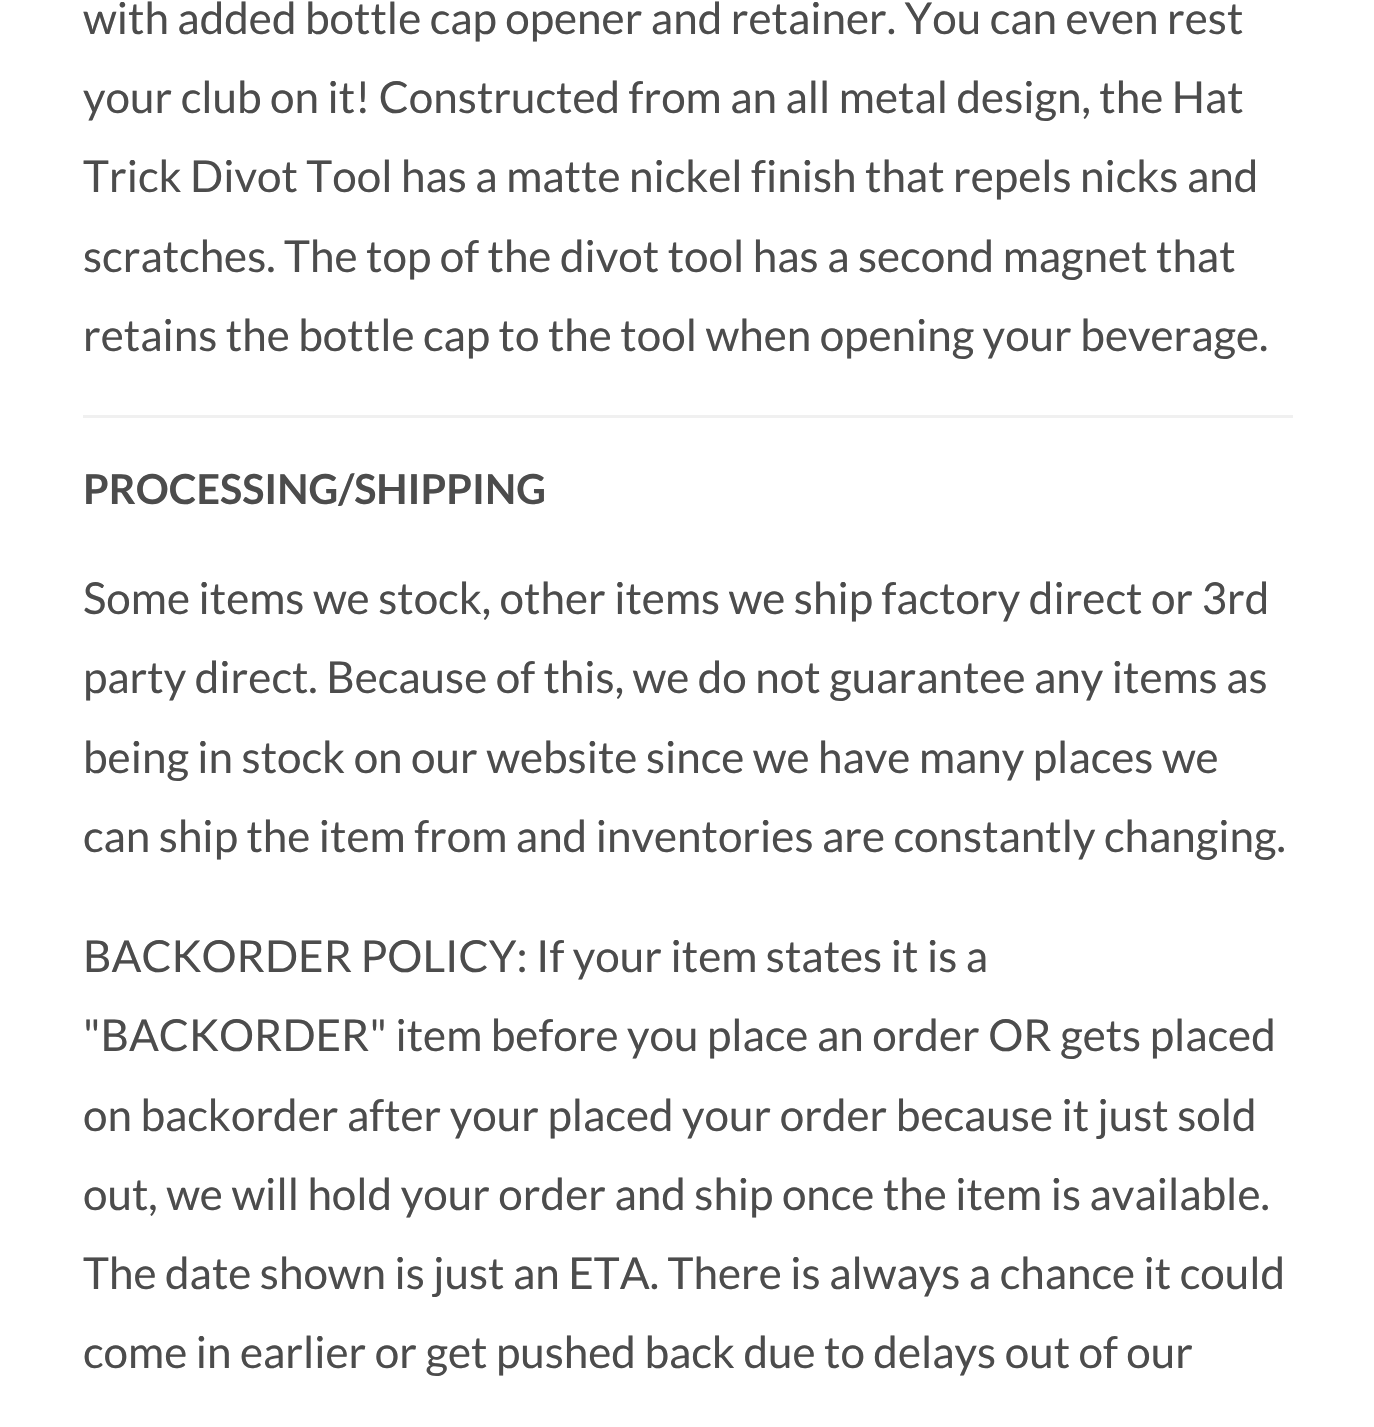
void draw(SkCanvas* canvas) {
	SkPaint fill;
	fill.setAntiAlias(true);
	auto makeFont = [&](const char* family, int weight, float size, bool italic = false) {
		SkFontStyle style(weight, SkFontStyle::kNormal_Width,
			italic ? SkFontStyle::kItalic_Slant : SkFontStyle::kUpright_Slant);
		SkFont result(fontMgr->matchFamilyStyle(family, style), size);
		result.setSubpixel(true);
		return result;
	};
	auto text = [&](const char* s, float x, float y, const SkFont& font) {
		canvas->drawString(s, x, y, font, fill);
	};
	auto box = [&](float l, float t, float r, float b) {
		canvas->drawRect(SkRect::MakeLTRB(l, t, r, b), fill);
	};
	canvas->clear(0xFFFFFFFF);
	fill.setColor(0xFFF0F0F0);
	box(83, 415, 1293, 418);
	auto font1 = makeFont("Lato", 400, 44);
	fill.setColor(0xFF4C4C4C);
	text("with added bottle cap opener and retainer. You can even rest", 83, 34, font1);
	text("your club on it! Constructed from an all metal design, the Hat", 83, 113, font1);
	text("Trick Divot Tool has a matte nickel finish that repels nicks and", 83, 192, font1);
	text("scratches. The top of the divot tool has a second magnet that", 83, 272, font1);
	text("retains the bottle cap to the tool when opening your beverage.", 83, 351, font1);
	auto font2 = makeFont("Lato", 700, 41.25f);
	text("PROCESSING/SHIPPING", 83, 504, font2);
	text("Some items we stock, other items we ship factory direct or 3rd", 83, 614, font1);
	text("party direct. Because of this, we do not guarantee any items as", 83, 693, font1);
	text("being in stock on our website since we have many places we", 83, 773, font1);
	text("can ship the item from and inventories are constantly changing.", 83, 852, font1);
	text("BACKORDER POLICY: If your item states it is a", 83, 972, font1);
	text("\"BACKORDER\" item before you place an order OR gets placed", 83, 1051, font1);
	text("on backorder after your placed your order because it just sold", 83, 1131, font1);
	text("out, we will hold your order and ship once the item is available.", 83, 1210, font1);
	text("The date shown is just an ETA. There is always a chance it could", 83, 1289, font1);
	text("come in earlier or get pushed back due to delays out of our", 83, 1368, font1);
}
